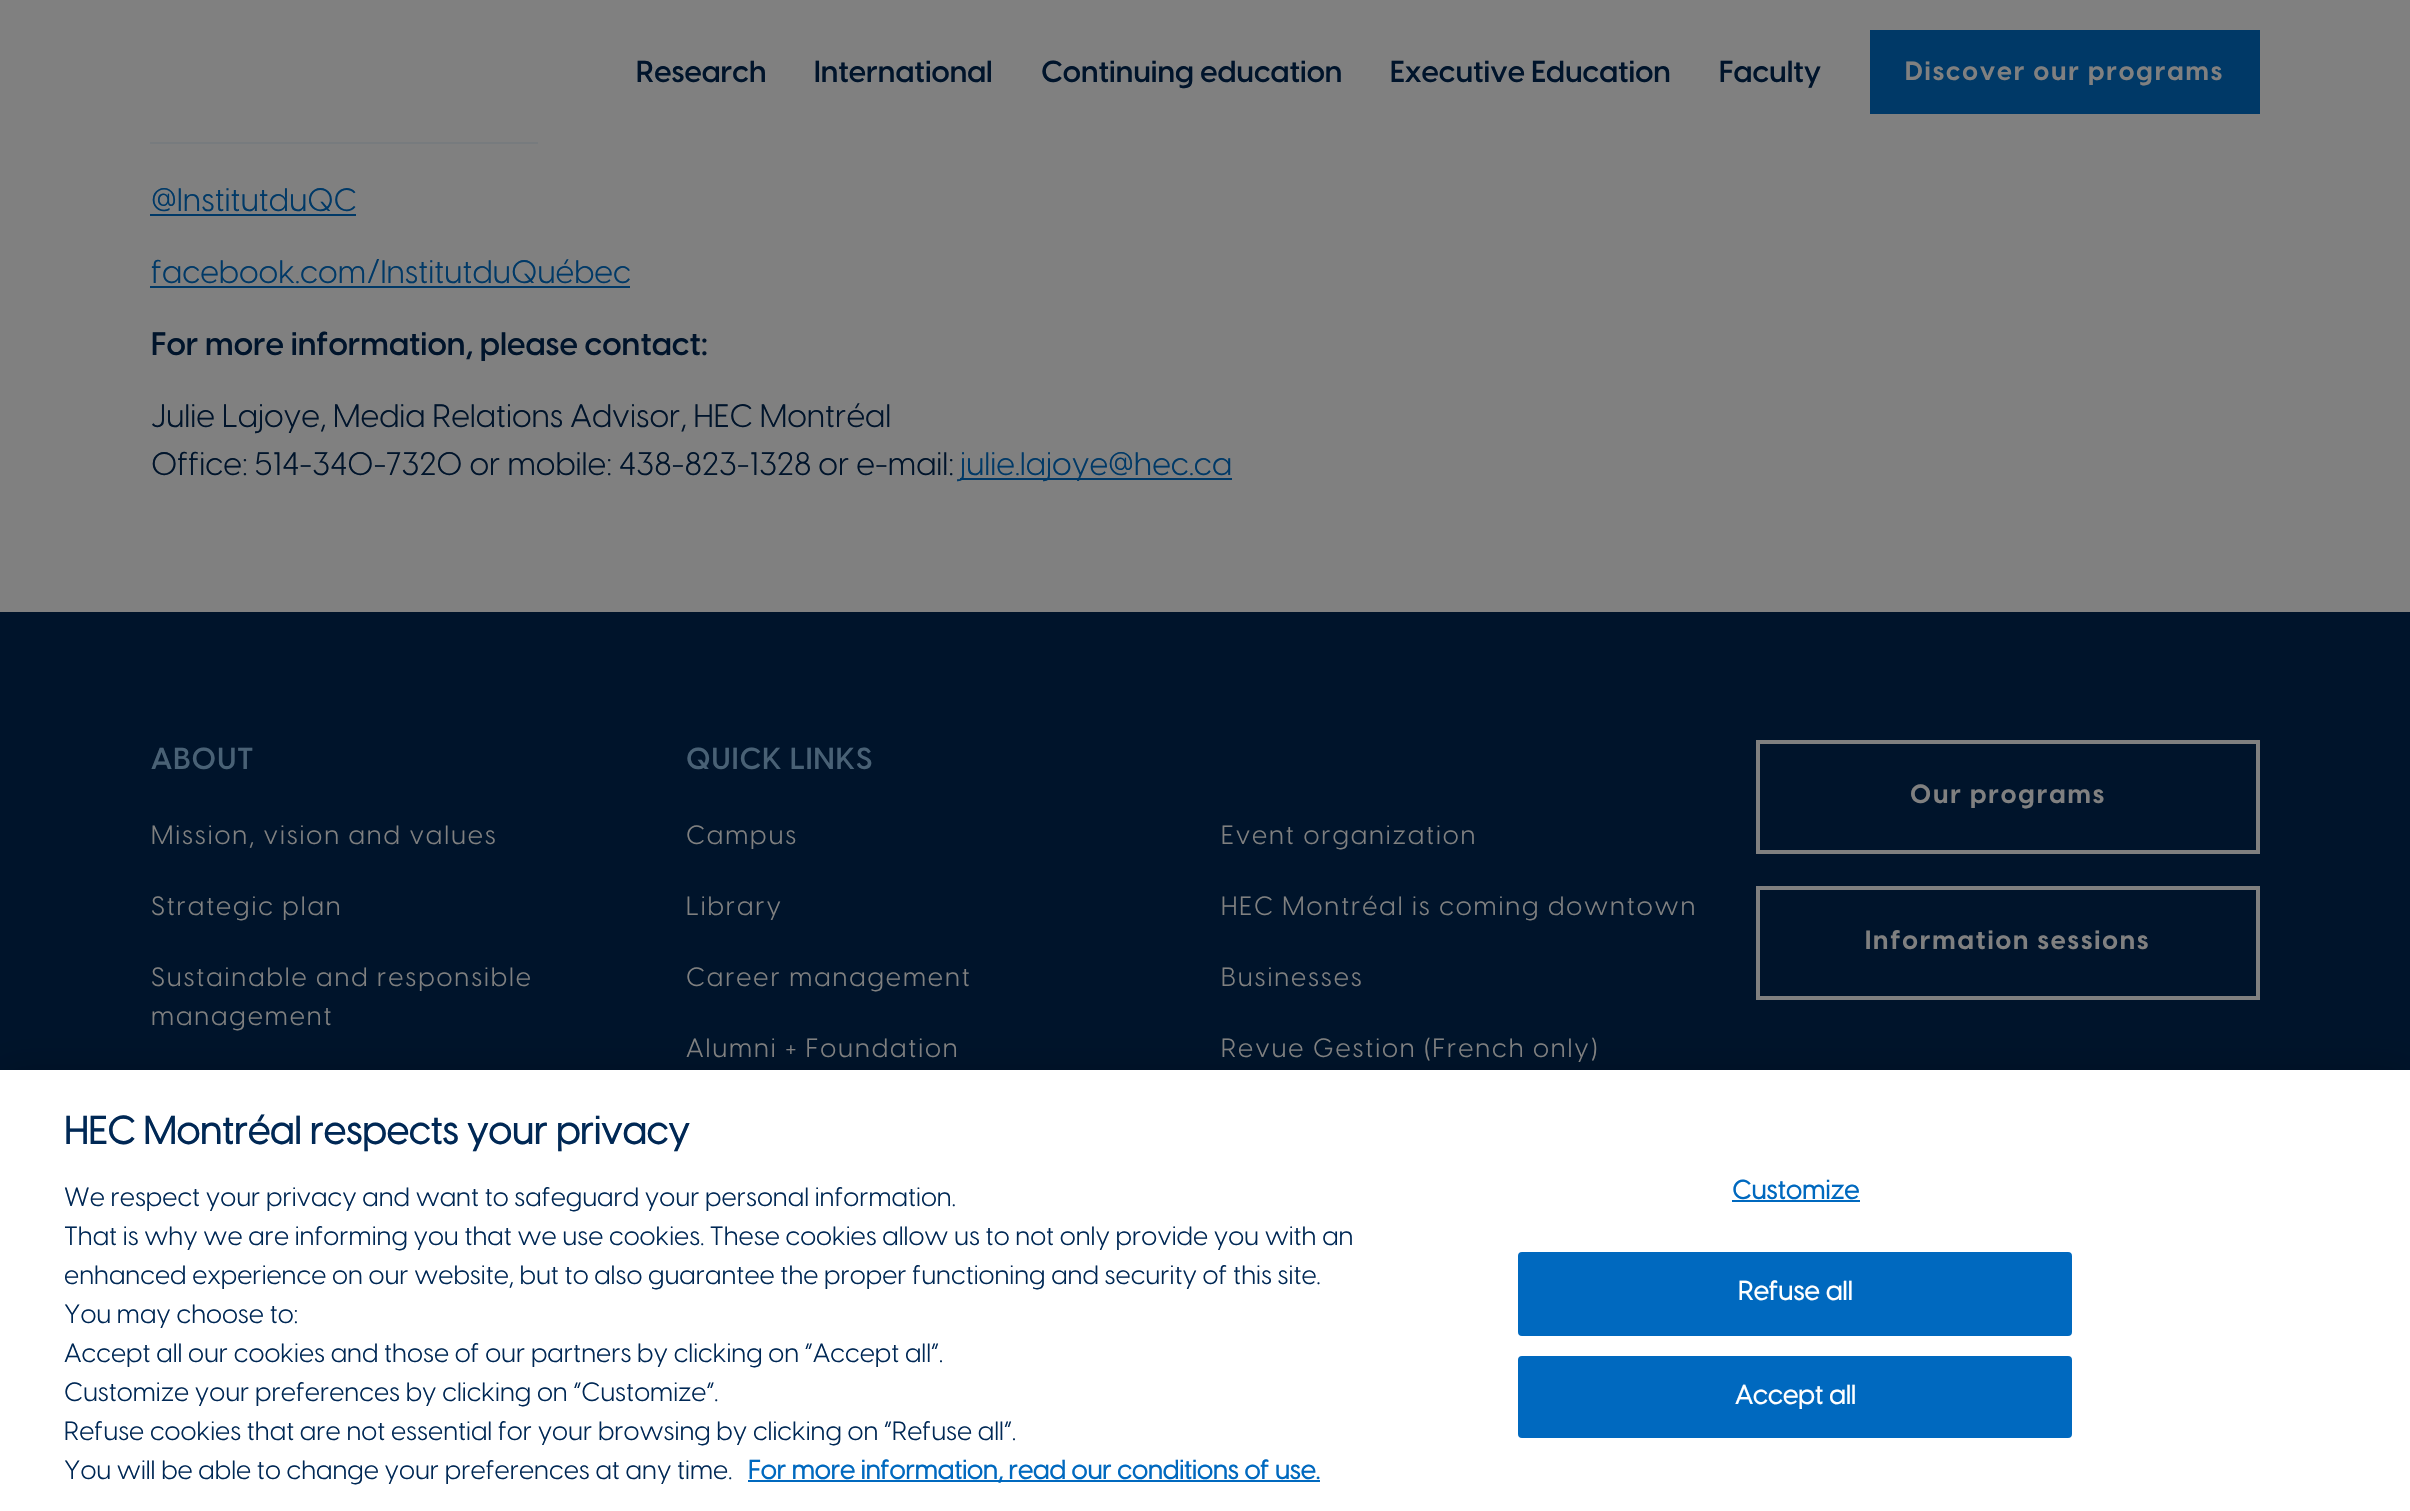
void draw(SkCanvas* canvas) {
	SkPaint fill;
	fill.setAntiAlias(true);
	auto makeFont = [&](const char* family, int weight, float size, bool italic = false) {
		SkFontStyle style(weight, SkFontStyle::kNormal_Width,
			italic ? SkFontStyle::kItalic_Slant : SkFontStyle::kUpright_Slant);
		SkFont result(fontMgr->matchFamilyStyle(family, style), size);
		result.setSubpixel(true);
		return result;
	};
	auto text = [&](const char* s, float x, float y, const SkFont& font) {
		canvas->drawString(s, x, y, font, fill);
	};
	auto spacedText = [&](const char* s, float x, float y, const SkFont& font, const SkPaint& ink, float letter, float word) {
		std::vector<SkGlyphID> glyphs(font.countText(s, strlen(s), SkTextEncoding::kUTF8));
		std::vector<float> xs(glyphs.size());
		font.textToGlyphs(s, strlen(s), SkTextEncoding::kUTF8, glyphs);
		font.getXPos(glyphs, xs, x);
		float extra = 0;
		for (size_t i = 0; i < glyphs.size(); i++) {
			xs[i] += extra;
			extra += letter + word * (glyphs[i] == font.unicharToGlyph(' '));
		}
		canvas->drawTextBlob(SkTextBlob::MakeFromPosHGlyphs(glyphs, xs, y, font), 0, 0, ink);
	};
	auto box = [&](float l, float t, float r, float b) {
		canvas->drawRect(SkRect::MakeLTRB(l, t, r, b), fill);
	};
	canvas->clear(0xFF808080);
	fill.setColor(0xFF003967);
	box(1870, 30, 2260, 114);
	fill.setColor(0xFF777B7E);
	box(150, 142, 538, 144);
	fill.setColor(0xFF003967);
	box(150, 214, 356, 216);
	box(150, 286, 630, 288);
	box(960, 478, 1232, 480);
	fill.setColor(0xFF00142B);
	box(0, 612, 2410, 1070);
	fill.setStyle(SkPaint::kStroke_Style);
	fill.setStrokeWidth(4);
	fill.setColor(0xFF808080);
	canvas->drawRect(SkRect::MakeLTRB(1758, 742, 2258, 852), fill);
	canvas->drawRect(SkRect::MakeLTRB(1758, 888, 2258, 998), fill);
	fill.setStyle(SkPaint::kFill_Style);
	fill.setColor(0x33000000);
	fill.setMaskFilter(SkMaskFilter::MakeBlur(kNormal_SkBlurStyle, 18));
	canvas->drawRect(SkRect::MakeLTRB(0, 1070, 2410, 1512), fill);
	fill.setMaskFilter(nullptr);
	fill.setColor(0xFFFFFFFF);
	box(0, 1070, 2410, 1511);
	fill.setColor(0xFF0069BF);
	box(748, 1480, 1320, 1482);
	box(1732, 1200, 1860, 1202);
	canvas->drawRoundRect(SkRect::MakeLTRB(1519, 1253, 2071, 1335), 3, 3, fill);
	fill.setStyle(SkPaint::kStroke_Style);
	fill.setStrokeWidth(2);
	canvas->drawRoundRect(SkRect::MakeLTRB(1519, 1253, 2071, 1335), 3, 3, fill);
	fill.setStyle(SkPaint::kFill_Style);
	canvas->drawRoundRect(SkRect::MakeLTRB(1519, 1357, 2071, 1437), 3, 3, fill);
	fill.setStyle(SkPaint::kStroke_Style);
	canvas->drawRoundRect(SkRect::MakeLTRB(1519, 1357, 2071, 1437), 3, 3, fill);
	auto font1 = makeFont("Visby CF", 600, 30);
	fill.setStyle(SkPaint::kFill_Style);
	fill.setColor(0xFF00142B);
	text("Research", 636, 82, font1);
	text("International", 814, 82, font1);
	text("Continuing education", 1041, 82, font1);
	text("Executive Education", 1390, 82, font1);
	text("Faculty", 1719, 82, font1);
	auto font2 = makeFont("Visby CF", 700, 26);
	fill.setColor(0xFF808080);
	spacedText("Discover our programs", 1905, 80, font2, fill, 1.9f, 0);
	auto font3 = makeFont("Visby CF", 400, 32);
	fill.setColor(0xFF003967);
	text("@InstitutduQC", 151, 211, font3);
	text("facebook.com/InstitutduQuébec", 151, 283, font3);
	auto font4 = makeFont("Visby CF", 600, 32);
	fill.setColor(0xFF00142B);
	text("For more information, please contact:", 151, 355, font4);
	text("Julie Lajoye, Media Relations Advisor, HEC Montréal", 151, 427, font3);
	text("Office: 514-340-7320 or mobile: 438-823-1328 or e-mail:", 151, 475, font3);
	fill.setColor(0xFF003967);
	text("julie.lajoye@hec.ca", 960, 475, font3);
	fill.setColor(0xFF496175);
	spacedText("ABOUT", 151, 769, font1, fill, 1.1f, 0);
	auto font5 = makeFont("Visby CF", 400, 26);
	fill.setColor(0xFF808080);
	spacedText("Mission, vision and values", 151, 844, font5, fill, 1.9f, 0);
	spacedText("Strategic plan", 151, 915, font5, fill, 1.9f, 0);
	spacedText("Sustainable and responsible", 151, 986, font5, fill, 1.9f, 0);
	spacedText("management", 151, 1025, font5, fill, 1.9f, 0);
	fill.setColor(0xFF496175);
	spacedText("QUICK LINKS", 686, 769, font1, fill, 1.1f, 0);
	fill.setColor(0xFF808080);
	spacedText("Campus", 686, 844, font5, fill, 1.9f, 0);
	spacedText("Library", 686, 915, font5, fill, 1.9f, 0);
	spacedText("Career management", 686, 986, font5, fill, 1.9f, 0);
	spacedText("Alumni + Foundation", 686, 1057, font5, fill, 1.9f, 0);
	spacedText("Event organization", 1221, 844, font5, fill, 1.9f, 0);
	spacedText("HEC Montréal is coming downtown", 1221, 915, font5, fill, 1.9f, 0);
	spacedText("Businesses", 1221, 986, font5, fill, 1.9f, 0);
	spacedText("Revue Gestion (French only)", 1221, 1057, font5, fill, 1.9f, 0);
	spacedText("Our programs", 1910, 803, font2, fill, 1.9f, 0);
	spacedText("Information sessions", 1865, 949, font2, fill, 1.9f, 0);
	auto font6 = makeFont("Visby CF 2", 700, 38.4f);
	fill.setColor(0xFF002855);
	text("HEC Montréal respects your privacy", 64, 1144, font6);
	text("We respect your privacy and want to safeguard your personal information.", 64, 1206, font5);
	text("That is why we are informing you that we use cookies. These cookies allow us to not only provide you with an", 64, 1245, font5);
	text("enhanced experience on our website, but to also guarantee the proper functioning and security of this site.", 64, 1284, font5);
	text("You may choose to:", 64, 1323, font5);
	text("Accept all our cookies and those of our partners by clicking on “Accept all”.", 64, 1362, font5);
	text("Customize your preferences by clicking on “Customize”.", 64, 1401, font5);
	text("Refuse cookies that are not essential for your browsing by clicking on “Refuse all”.", 64, 1440, font5);
	text("You will be able to change your preferences at any time.", 64, 1479, font5);
	auto font7 = makeFont("Visby CF 2", 700, 26);
	fill.setColor(0xFF0069BF);
	text("For more information, read our conditions of use.", 748, 1479, font7);
	spacedText("Customize", 1732, 1199, font7, fill, 0.25f, 0);
	fill.setColor(0xFFFFFFFF);
	spacedText("Refuse all", 1738, 1300, font7, fill, 0.25f, 0);
	spacedText("Accept all", 1735, 1404, font7, fill, 0.25f, 0);
}
